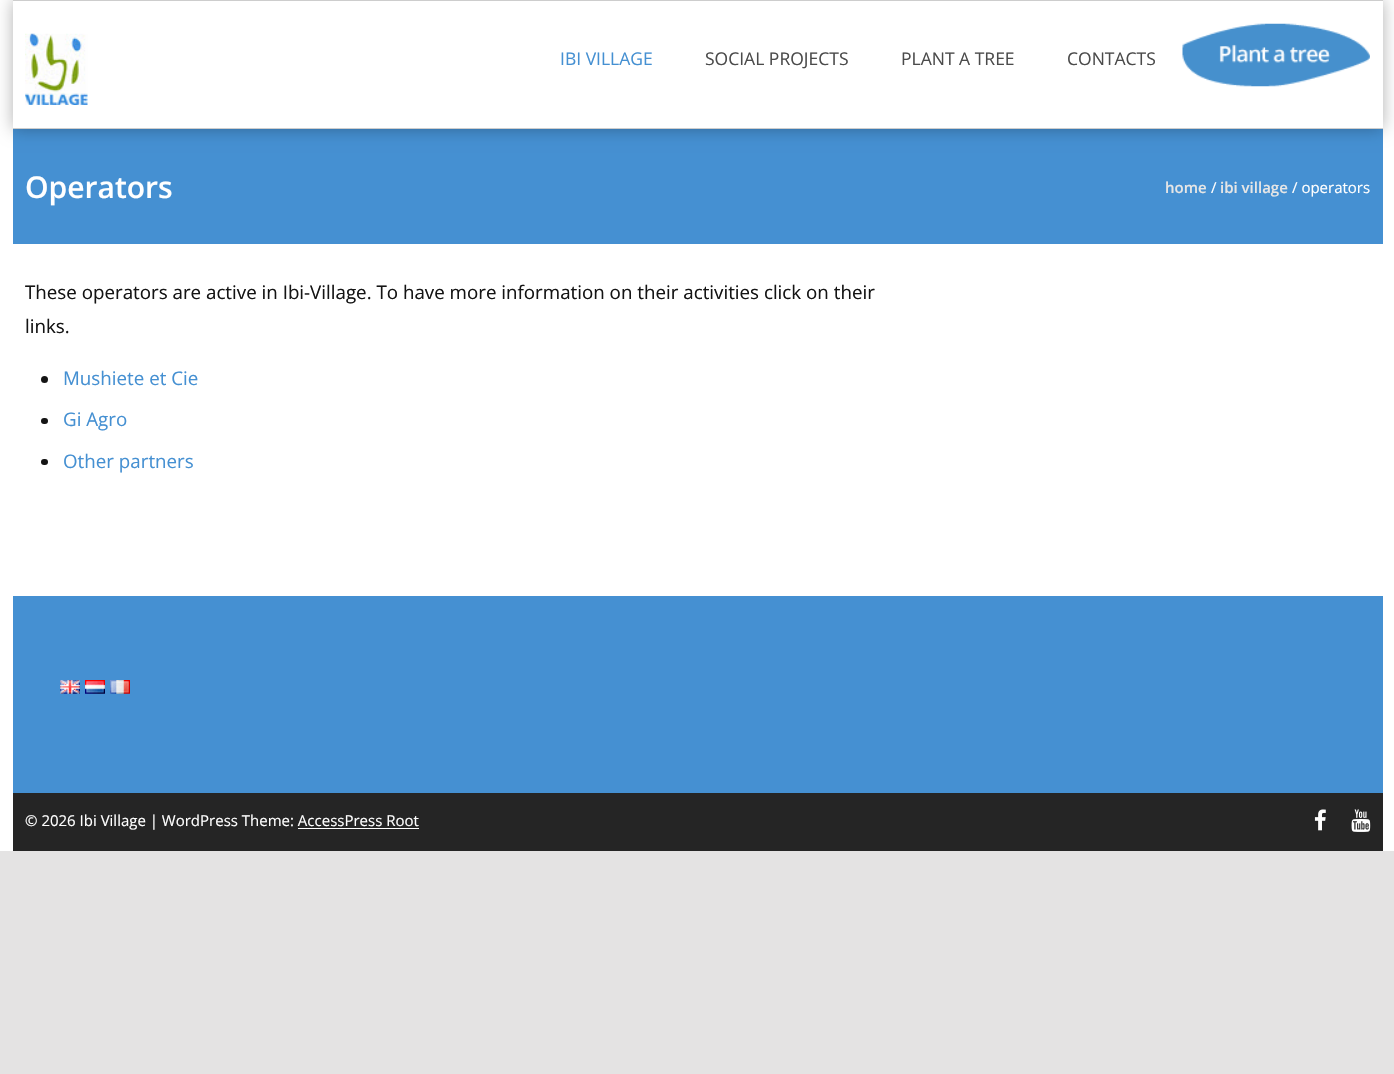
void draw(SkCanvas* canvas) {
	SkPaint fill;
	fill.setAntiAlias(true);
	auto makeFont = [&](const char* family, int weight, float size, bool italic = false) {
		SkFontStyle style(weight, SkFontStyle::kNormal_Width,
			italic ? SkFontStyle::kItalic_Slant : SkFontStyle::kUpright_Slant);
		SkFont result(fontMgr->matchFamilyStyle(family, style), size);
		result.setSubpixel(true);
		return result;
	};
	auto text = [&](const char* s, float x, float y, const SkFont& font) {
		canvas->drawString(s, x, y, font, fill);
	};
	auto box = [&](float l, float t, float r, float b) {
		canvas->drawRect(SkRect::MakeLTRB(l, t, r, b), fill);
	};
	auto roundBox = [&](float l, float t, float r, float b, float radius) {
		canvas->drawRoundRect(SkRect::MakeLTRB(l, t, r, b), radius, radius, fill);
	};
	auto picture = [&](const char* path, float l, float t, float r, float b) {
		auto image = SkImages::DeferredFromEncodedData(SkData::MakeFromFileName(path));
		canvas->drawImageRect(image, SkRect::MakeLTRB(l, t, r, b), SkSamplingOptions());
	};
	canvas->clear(0xFFE4E3E3);
	fill.setColor(0xFFFFFFFF);
	box(0, 0, 1394, 851);
	fill.setColor(0xFF4590D2);
	box(13, 129, 1383, 244);
	canvas->save();
	canvas->clipPath(SkPathBuilder(SkPathFillType::kEvenOdd).moveTo(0, 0).lineTo(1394, 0).lineTo(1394, 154).lineTo(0, 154).close().moveTo(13, 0).lineTo(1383, 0).lineTo(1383, 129).lineTo(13, 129).close().detach(), true);
	fill.setColor(0x4D000000);
	fill.setMaskFilter(SkMaskFilter::MakeBlur(kNormal_SkBlurStyle, 8));
	canvas->drawRect(SkRect::MakeLTRB(13, 0, 1383, 129), fill);
	fill.setMaskFilter(nullptr);
	canvas->restore();
	fill.setColor(0xFFCDCDCD);
	box(13, 0, 1383, 1);
	box(13, 128, 1383, 129);
	picture("image0.png", 25, 33, 88, 105);
	picture("image1.png", 1182, 23, 1370, 87);
	fill.setColor(0xFF141414);
	canvas->drawCircle(44.5f, 379.5f, 3.5f, fill);
	roundBox(41, 418, 48, 424, 3);
	roundBox(41, 459, 48, 465, 3);
	fill.setColor(0xFF4590D2);
	box(13, 596, 1383, 793);
	picture("image2.png", 60, 680, 80, 694);
	picture("image3.png", 85, 680, 105, 694);
	picture("image4.png", 110, 680, 130, 694);
	fill.setColor(0xFF252525);
	box(13, 793, 1383, 851);
	fill.setColor(0xFFFFFFFF);
	box(298, 828, 419, 829);
	picture("image5.png", 1314, 809, 1326, 831);
	picture("image6.png", 1351, 809, 1371, 832);
	auto font1 = makeFont("Open Sans", 400, 17.5f);
	fill.setColor(0xFF4590D2);
	text("IBI VILLAGE", 560, 65, font1);
	fill.setColor(0xFF4B4B4B);
	text("SOCIAL PROJECTS", 705, 65, font1);
	text("PLANT A TREE", 901, 65, font1);
	text("CONTACTS", 1067, 65, font1);
	auto font2 = makeFont("Open Sans", 600, 30);
	fill.setColor(0xFFFFFFFF);
	text("Operators", 25, 198, font2);
	auto font3 = makeFont("Open Sans", 600, 15);
	fill.setColor(0xFFE6E6E6);
	text("home", 1165, 193, font3);
	auto font4 = makeFont("Open Sans", 400, 15);
	fill.setColor(0xFFFFFFFF);
	text("/", 1211, 193, font4);
	fill.setColor(0xFFE6E6E6);
	text("ibi village", 1220, 193, font3);
	fill.setColor(0xFFFFFFFF);
	text("/ operators", 1292, 193, font4);
	auto font5 = makeFont("Open Sans", 400, 18.75f);
	fill.setColor(0xFF141414);
	text("These operators are active in Ibi-Village. To have more information on their activities click on their", 25, 299, font5);
	text("links.", 25, 333, font5);
	fill.setColor(0xFF4590D2);
	text("Mushiete et Cie", 63, 385, font5);
	text("Gi Agro", 63, 426, font5);
	text("Other partners", 63, 468, font5);
	fill.setColor(0xFFFFFFFF);
	text("© 2026 Ibi Village | WordPress Theme: AccessPress Root", 25, 826, font4);
}
